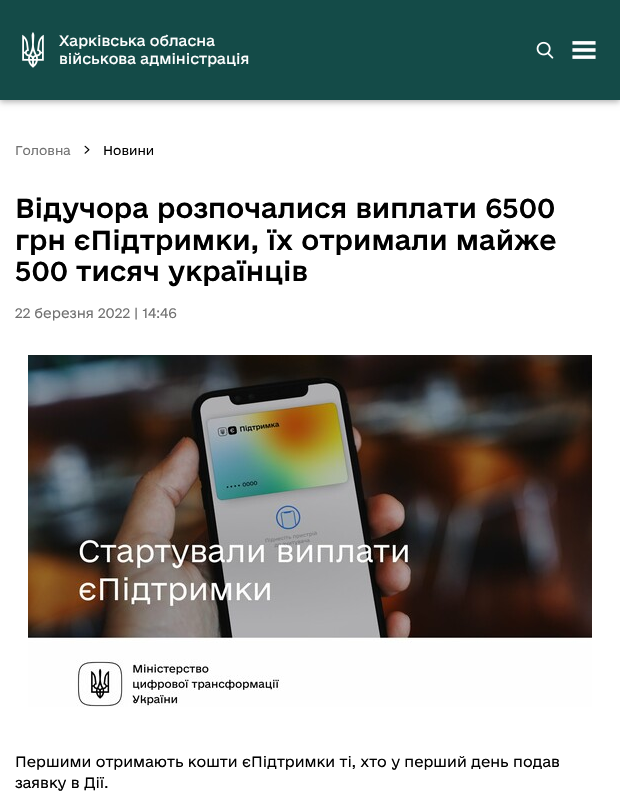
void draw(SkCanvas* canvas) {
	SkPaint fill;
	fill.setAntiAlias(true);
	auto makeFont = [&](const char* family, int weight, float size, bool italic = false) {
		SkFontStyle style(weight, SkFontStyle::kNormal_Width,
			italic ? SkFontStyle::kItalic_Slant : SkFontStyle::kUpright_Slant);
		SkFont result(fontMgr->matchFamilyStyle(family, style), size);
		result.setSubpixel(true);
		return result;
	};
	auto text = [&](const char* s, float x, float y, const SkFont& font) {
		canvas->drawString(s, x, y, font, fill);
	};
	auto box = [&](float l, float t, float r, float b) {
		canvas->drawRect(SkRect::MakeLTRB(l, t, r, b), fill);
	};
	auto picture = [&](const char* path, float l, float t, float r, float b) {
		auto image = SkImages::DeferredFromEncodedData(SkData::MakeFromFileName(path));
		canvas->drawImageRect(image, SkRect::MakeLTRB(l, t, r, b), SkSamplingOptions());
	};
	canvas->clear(0xFFFFFFFF);
	fill.setColor(0x4D000000);
	fill.setMaskFilter(SkMaskFilter::MakeBlur(kNormal_SkBlurStyle, 3));
	canvas->drawRect(SkRect::MakeLTRB(0, 2, 620, 102), fill);
	fill.setMaskFilter(nullptr);
	fill.setColor(0xFF144B48);
	box(0, 0, 620, 100);
	picture("image0.png", 22, 32, 44, 68);
	picture("image1.png", 536, 41, 554, 59);
	picture("image2.png", 572, 41, 596, 59);
	picture("image3.png", 84, 145, 90, 154);
	picture("image4.png", 28, 355, 592, 707);
	auto font1 = makeFont("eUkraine", 400, 14);
	fill.setColor(0xFFFFFFFF);
	text("Харківська обласна", 59, 46, font1);
	text("військова адміністрація", 59, 64, font1);
	auto font2 = makeFont("eUkraine", 300, 12);
	fill.setColor(0xFF717171);
	text("Головна", 15, 155, font2);
	fill.setColor(0xFF000000);
	text("Новини", 103, 155, font2);
	auto font3 = makeFont("eUkraine", 500, 26);
	text("Відучора розпочалися виплати 6500", 15, 218, font3);
	text("грн єПідтримки, їх отримали майже", 15, 250, font3);
	text("500 тисяч українців", 15, 281, font3);
	auto font4 = makeFont("eUkraine", 300, 13);
	fill.setColor(0xFF717171);
	text("22 березня 2022 | 14:46", 15, 318, font4);
	auto font5 = makeFont("eUkraine", 300, 14);
	fill.setColor(0xFF000000);
	text("Першими отримають кошти єПідтримки ті, хто у перший день подав", 15, 767, font5);
	text("заявку в Дії.", 15, 788, font5);
}
